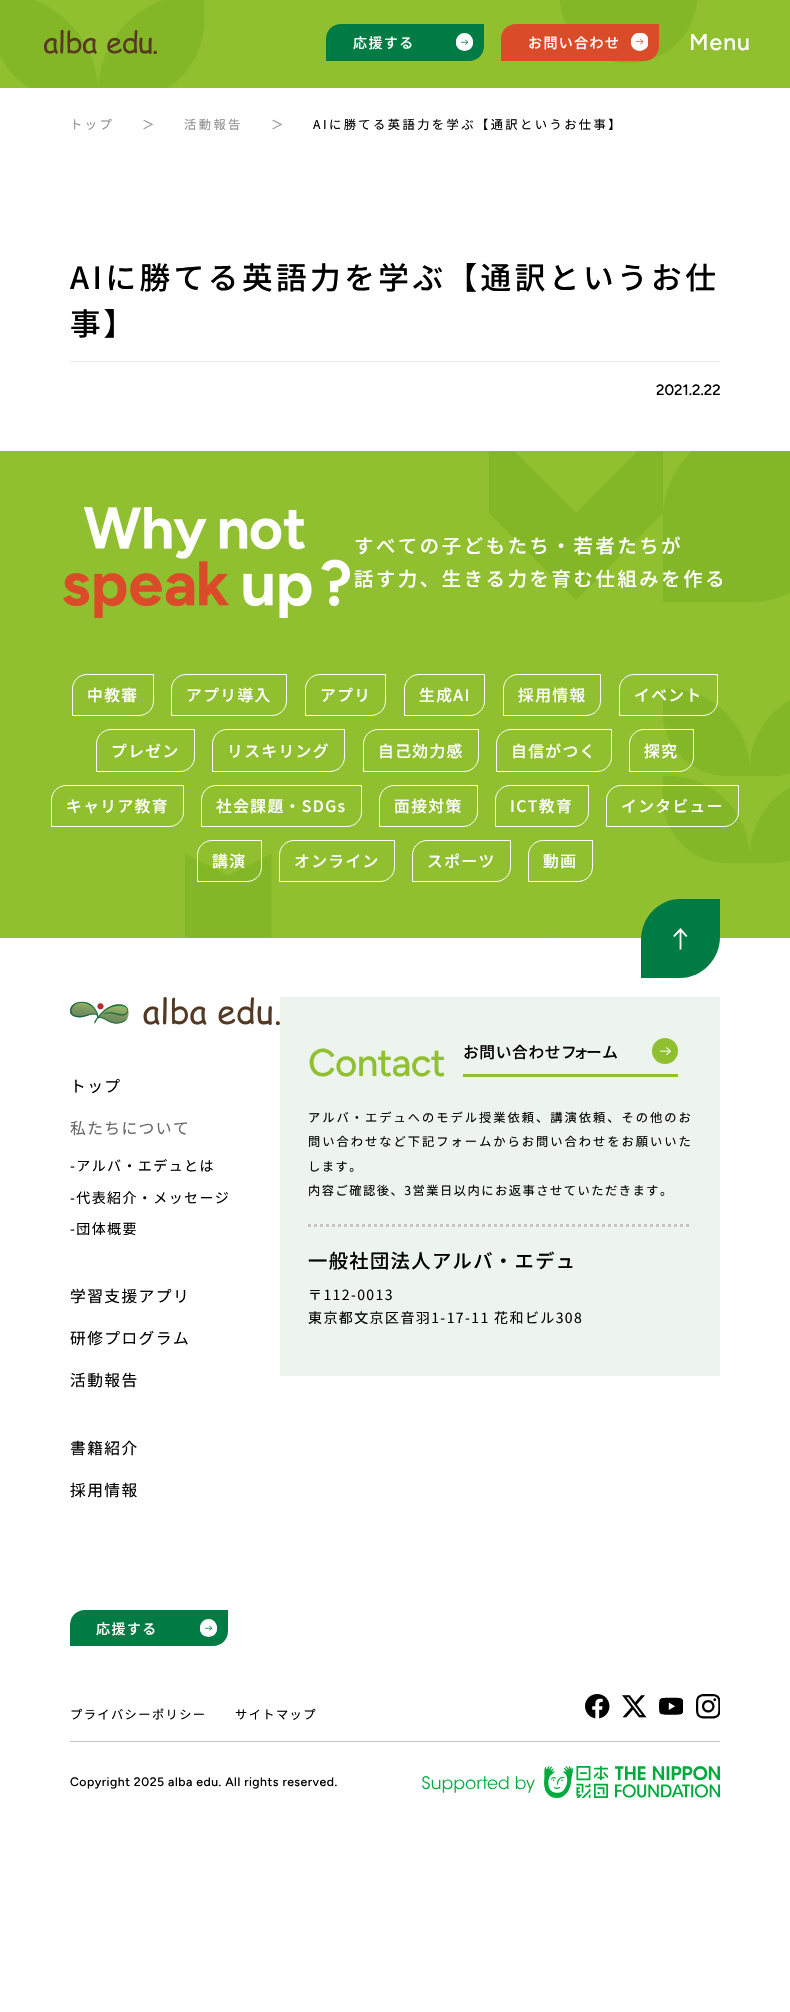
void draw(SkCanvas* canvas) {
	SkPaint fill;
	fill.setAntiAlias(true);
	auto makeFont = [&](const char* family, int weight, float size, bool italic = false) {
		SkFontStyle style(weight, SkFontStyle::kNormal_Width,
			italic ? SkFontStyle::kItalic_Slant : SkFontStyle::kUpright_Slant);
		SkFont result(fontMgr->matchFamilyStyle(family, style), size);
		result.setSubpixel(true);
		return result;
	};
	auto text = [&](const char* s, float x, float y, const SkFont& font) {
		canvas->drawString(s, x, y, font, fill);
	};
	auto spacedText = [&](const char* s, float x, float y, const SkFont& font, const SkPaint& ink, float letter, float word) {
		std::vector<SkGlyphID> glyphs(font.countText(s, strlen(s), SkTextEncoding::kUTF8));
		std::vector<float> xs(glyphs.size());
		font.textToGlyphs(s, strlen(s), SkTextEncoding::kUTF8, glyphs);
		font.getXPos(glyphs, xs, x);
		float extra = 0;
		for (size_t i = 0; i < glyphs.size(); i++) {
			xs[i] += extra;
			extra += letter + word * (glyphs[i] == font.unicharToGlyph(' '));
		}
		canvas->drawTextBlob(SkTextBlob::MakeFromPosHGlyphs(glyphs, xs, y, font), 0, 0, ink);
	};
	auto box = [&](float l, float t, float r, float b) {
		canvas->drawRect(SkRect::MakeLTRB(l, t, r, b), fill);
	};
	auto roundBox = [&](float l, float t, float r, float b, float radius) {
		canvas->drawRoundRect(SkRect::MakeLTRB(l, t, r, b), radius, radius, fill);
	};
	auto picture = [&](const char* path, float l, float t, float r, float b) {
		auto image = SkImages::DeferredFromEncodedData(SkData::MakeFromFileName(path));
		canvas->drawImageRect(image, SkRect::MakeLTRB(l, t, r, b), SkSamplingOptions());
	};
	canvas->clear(0xFFFFFFFF);
	fill.setColor(0xFF90C030);
	box(697, 0, 790, 88);
	picture("image0.png", 0, 0, 697, 88);
	picture("image1.png", 44, 30, 157, 54);
	fill.setColor(0xFF007B43);
	canvas->drawPath(SkPathBuilder().moveTo(341, 24).lineTo(484, 24).lineTo(484, 46).cubicTo(484, 54.5f, 477.5f, 61, 469, 61).lineTo(326, 61).lineTo(326, 39).cubicTo(326, 30.5f, 332.5f, 24, 341, 24).close().detach(), fill);
	fill.setColor(0xFFFFFFFF);
	roundBox(456, 33, 473, 51, 8.5f);
	picture("image2.png", 456, 37, 473, 50);
	fill.setColor(0xFFDA4B29);
	canvas->drawPath(SkPathBuilder().moveTo(516, 24).lineTo(659, 24).lineTo(659, 46).cubicTo(659, 54.5f, 652.5f, 61, 644, 61).lineTo(501, 61).lineTo(501, 39).cubicTo(501, 30.5f, 507.5f, 24, 516, 24).close().detach(), fill);
	fill.setColor(0xFFFFFFFF);
	roundBox(631, 33, 648, 51, 8.5f);
	picture("image3.png", 631, 33, 648, 51);
	fill.setColor(0xFFE6ECE9);
	box(70, 361, 720, 362);
	fill.setColor(0xFF90C030);
	box(0, 451, 790, 938);
	picture("image4.png", 185, 451, 790, 938);
	picture("image5.png", 63, 507, 350, 618);
	fill.setStyle(SkPaint::kStroke_Style);
	fill.setStrokeWidth(1);
	fill.setColor(0xFFFFFFFF);
	canvas->drawPath(SkPathBuilder().moveTo(87, 674.5f).lineTo(153.5f, 674.5f).lineTo(153.5f, 701).cubicTo(153.5f, 709, 147, 715.5f, 139, 715.5f).lineTo(72.5f, 715.5f).lineTo(72.5f, 689).cubicTo(72.5f, 681, 79, 674.5f, 87, 674.5f).close().detach(), fill);
	canvas->drawPath(SkPathBuilder().moveTo(186, 674.5f).lineTo(286.5f, 674.5f).lineTo(286.5f, 701).cubicTo(286.5f, 709, 280, 715.5f, 272, 715.5f).lineTo(171.5f, 715.5f).lineTo(171.5f, 689).cubicTo(171.5f, 681, 178, 674.5f, 186, 674.5f).close().detach(), fill);
	canvas->drawPath(SkPathBuilder().moveTo(320, 674.5f).lineTo(385.5f, 674.5f).lineTo(385.5f, 701).cubicTo(385.5f, 709, 379, 715.5f, 371, 715.5f).lineTo(305.5f, 715.5f).lineTo(305.5f, 689).cubicTo(305.5f, 681, 312, 674.5f, 320, 674.5f).close().detach(), fill);
	canvas->drawPath(SkPathBuilder().moveTo(419, 674.5f).lineTo(484.5f, 674.5f).lineTo(484.5f, 701).cubicTo(484.5f, 709, 478, 715.5f, 470, 715.5f).lineTo(404.5f, 715.5f).lineTo(404.5f, 689).cubicTo(404.5f, 681, 411, 674.5f, 419, 674.5f).close().detach(), fill);
	canvas->drawPath(SkPathBuilder().moveTo(518, 674.5f).lineTo(600.5f, 674.5f).lineTo(600.5f, 701).cubicTo(600.5f, 709, 594, 715.5f, 586, 715.5f).lineTo(503.5f, 715.5f).lineTo(503.5f, 689).cubicTo(503.5f, 681, 510, 674.5f, 518, 674.5f).close().detach(), fill);
	canvas->drawPath(SkPathBuilder().moveTo(634, 674.5f).lineTo(717.5f, 674.5f).lineTo(717.5f, 701).cubicTo(717.5f, 709, 711, 715.5f, 703, 715.5f).lineTo(619.5f, 715.5f).lineTo(619.5f, 689).cubicTo(619.5f, 681, 626, 674.5f, 634, 674.5f).close().detach(), fill);
	canvas->drawPath(SkPathBuilder().moveTo(111, 729.5f).lineTo(194.5f, 729.5f).lineTo(194.5f, 757).cubicTo(194.5f, 765, 188, 771.5f, 180, 771.5f).lineTo(96.5f, 771.5f).lineTo(96.5f, 744).cubicTo(96.5f, 736, 103, 729.5f, 111, 729.5f).close().detach(), fill);
	canvas->drawPath(SkPathBuilder().moveTo(227, 729.5f).lineTo(344.5f, 729.5f).lineTo(344.5f, 757).cubicTo(344.5f, 765, 338, 771.5f, 330, 771.5f).lineTo(212.5f, 771.5f).lineTo(212.5f, 744).cubicTo(212.5f, 736, 219, 729.5f, 227, 729.5f).close().detach(), fill);
	canvas->drawPath(SkPathBuilder().moveTo(378, 729.5f).lineTo(478.5f, 729.5f).lineTo(478.5f, 757).cubicTo(478.5f, 765, 472, 771.5f, 464, 771.5f).lineTo(363.5f, 771.5f).lineTo(363.5f, 744).cubicTo(363.5f, 736, 370, 729.5f, 378, 729.5f).close().detach(), fill);
	canvas->drawPath(SkPathBuilder().moveTo(511, 729.5f).lineTo(611.5f, 729.5f).lineTo(611.5f, 757).cubicTo(611.5f, 765, 605, 771.5f, 597, 771.5f).lineTo(496.5f, 771.5f).lineTo(496.5f, 744).cubicTo(496.5f, 736, 503, 729.5f, 511, 729.5f).close().detach(), fill);
	canvas->drawPath(SkPathBuilder().moveTo(644, 729.5f).lineTo(693.5f, 729.5f).lineTo(693.5f, 757).cubicTo(693.5f, 765, 687, 771.5f, 679, 771.5f).lineTo(629.5f, 771.5f).lineTo(629.5f, 744).cubicTo(629.5f, 736, 636, 729.5f, 644, 729.5f).close().detach(), fill);
	canvas->drawPath(SkPathBuilder().moveTo(66, 785.5f).lineTo(183.5f, 785.5f).lineTo(183.5f, 812).cubicTo(183.5f, 820, 177, 826.5f, 169, 826.5f).lineTo(51.5f, 826.5f).lineTo(51.5f, 800).cubicTo(51.5f, 792, 58, 785.5f, 66, 785.5f).close().detach(), fill);
	canvas->drawPath(SkPathBuilder().moveTo(216, 785.5f).lineTo(361.5f, 785.5f).lineTo(361.5f, 812).cubicTo(361.5f, 820, 355, 826.5f, 347, 826.5f).lineTo(201.5f, 826.5f).lineTo(201.5f, 800).cubicTo(201.5f, 792, 208, 785.5f, 216, 785.5f).close().detach(), fill);
	canvas->drawPath(SkPathBuilder().moveTo(394, 785.5f).lineTo(477.5f, 785.5f).lineTo(477.5f, 812).cubicTo(477.5f, 820, 471, 826.5f, 463, 826.5f).lineTo(379.5f, 826.5f).lineTo(379.5f, 800).cubicTo(379.5f, 792, 386, 785.5f, 394, 785.5f).close().detach(), fill);
	canvas->drawPath(SkPathBuilder().moveTo(510, 785.5f).lineTo(588.5f, 785.5f).lineTo(588.5f, 812).cubicTo(588.5f, 820, 582, 826.5f, 574, 826.5f).lineTo(495.5f, 826.5f).lineTo(495.5f, 800).cubicTo(495.5f, 792, 502, 785.5f, 510, 785.5f).close().detach(), fill);
	canvas->drawPath(SkPathBuilder().moveTo(621, 785.5f).lineTo(738.5f, 785.5f).lineTo(738.5f, 812).cubicTo(738.5f, 820, 732, 826.5f, 724, 826.5f).lineTo(606.5f, 826.5f).lineTo(606.5f, 800).cubicTo(606.5f, 792, 613, 785.5f, 621, 785.5f).close().detach(), fill);
	canvas->drawPath(SkPathBuilder().moveTo(212, 840.5f).lineTo(261.5f, 840.5f).lineTo(261.5f, 867).cubicTo(261.5f, 875, 255, 881.5f, 247, 881.5f).lineTo(197.5f, 881.5f).lineTo(197.5f, 855).cubicTo(197.5f, 847, 204, 840.5f, 212, 840.5f).close().detach(), fill);
	canvas->drawPath(SkPathBuilder().moveTo(294, 840.5f).lineTo(394.5f, 840.5f).lineTo(394.5f, 867).cubicTo(394.5f, 875, 388, 881.5f, 380, 881.5f).lineTo(279.5f, 881.5f).lineTo(279.5f, 855).cubicTo(279.5f, 847, 286, 840.5f, 294, 840.5f).close().detach(), fill);
	canvas->drawPath(SkPathBuilder().moveTo(427, 840.5f).lineTo(510.5f, 840.5f).lineTo(510.5f, 867).cubicTo(510.5f, 875, 504, 881.5f, 496, 881.5f).lineTo(412.5f, 881.5f).lineTo(412.5f, 855).cubicTo(412.5f, 847, 419, 840.5f, 427, 840.5f).close().detach(), fill);
	canvas->drawPath(SkPathBuilder().moveTo(543, 840.5f).lineTo(592.5f, 840.5f).lineTo(592.5f, 867).cubicTo(592.5f, 875, 586, 881.5f, 578, 881.5f).lineTo(528.5f, 881.5f).lineTo(528.5f, 855).cubicTo(528.5f, 847, 535, 840.5f, 543, 840.5f).close().detach(), fill);
	fill.setStyle(SkPaint::kFill_Style);
	fill.setColor(0xFF007B43);
	canvas->drawPath(SkPathBuilder().moveTo(680, 899).cubicTo(659, 899, 641, 917, 641, 940).lineTo(641, 978).lineTo(680, 978).cubicTo(702, 978, 720, 959, 720, 937).lineTo(720, 899).close().detach(), fill);
	fill.setStyle(SkPaint::kStroke_Style);
	fill.setStrokeWidth(1.8f);
	fill.setColor(0xFFFFFFFF);
	canvas->drawPath(SkPathBuilder().moveTo(680.5f, 949.5f).lineTo(680.5f, 930).detach(), fill);
	fill.setStyle(SkPaint::kFill_Style);
	canvas->drawPath(SkPathBuilder().moveTo(687.5f, 936).lineTo(686, 937).lineTo(680.5f, 931).lineTo(674.5f, 937).lineTo(673, 936).lineTo(680.5f, 928).close().detach(), fill);
	picture("image6.png", 70, 997, 280, 1025);
	fill.setColor(0xFF007B43);
	canvas->drawPath(SkPathBuilder().moveTo(85, 1610).lineTo(228, 1610).lineTo(228, 1631).cubicTo(228, 1639.5f, 221.5f, 1646, 213, 1646).lineTo(70, 1646).lineTo(70, 1625).cubicTo(70, 1616.5f, 76.5f, 1610, 85, 1610).close().detach(), fill);
	fill.setColor(0xFFFFFFFF);
	roundBox(200, 1619, 217, 1637, 8.5f);
	picture("image2.png", 200, 1623, 217, 1636);
	fill.setColor(0xFFECF4ED);
	box(280, 997, 720, 1376);
	fill.setColor(0xFF90C030);
	canvas->drawCircle(665, 1051, 13, fill);
	picture("image7.png", 660, 1047, 671, 1055);
	box(463, 1074, 678, 1077);
	fill.setStyle(SkPaint::kStroke_Style);
	fill.setStrokeWidth(3);
	fill.setColor(0xFFC5C5C5);
	fill.setPathEffect(SkDashPathEffect::Make({{3, 3}}, 0));
	canvas->drawPath(SkPathBuilder().moveTo(308, 1225.5f).lineTo(692, 1225.5f).detach(), fill);
	fill.setPathEffect(nullptr);
	picture("image8.png", 585, 1694, 610, 1719);
	picture("image9.png", 622, 1695, 647, 1718);
	picture("image10.png", 659, 1697, 683, 1715);
	picture("image11.png", 696, 1694, 720, 1719);
	fill.setStyle(SkPaint::kFill_Style);
	box(70, 1741, 720, 1742);
	picture("image12.png", 422, 1766, 720, 1798);
	auto font1 = makeFont("Noto Sans JP", 500, 14);
	fill.setColor(0xFFFFFFFF);
	spacedText("応援する", 353, 48, font1, fill, 1.4f, 0);
	spacedText("お問い合わせ", 528, 48, font1, fill, 1.4f, 0);
	auto font2 = makeFont("Figtree", 500, 23);
	spacedText("Menu", 689, 50, font2, fill, 1, 0);
	auto font3 = makeFont("Noto Sans JP", 400, 12.25f);
	fill.setColor(0xFF909091);
	spacedText("トップ", 70, 129, font3, fill, 2.45f, 0);
	spacedText("＞", 142, 129, font3, fill, 2.45f, 0);
	spacedText("活動報告", 184, 129, font3, fill, 2.45f, 0);
	spacedText("＞", 271, 129, font3, fill, 2.45f, 0);
	fill.setColor(0xFF000000);
	spacedText("AIに勝てる英語力を学ぶ【通訳というお仕事】", 313, 129, font3, fill, 2.45f, 0);
	auto font4 = makeFont("Noto Sans JP", 500, 30.6f);
	spacedText("AIに勝てる英語力を学ぶ【通訳というお仕", 70, 289, font4, fill, 3.5f, 0);
	spacedText("事】", 70, 335, font4, fill, 3, 0);
	auto font5 = makeFont("Figtree", 500, 15);
	text("2021.2.22", 656, 395, font5);
	auto font6 = makeFont("Noto Sans JP", 500, 19.25f);
	fill.setColor(0xFFFFFFFF);
	spacedText("すべての子どもたち・若者たちが", 354, 553, font6, fill, 2.7f, 0);
	spacedText("話す力、生きる力を育む仕組みを作る", 354, 586, font6, fill, 2.7f, 0);
	auto font7 = makeFont("Noto Sans JP", 500, 15.75f);
	spacedText("中教審", 87, 701, font7, fill, 1.4f, 0);
	spacedText("アプリ導入", 186, 701, font7, fill, 1.4f, 0);
	spacedText("アプリ", 320, 701, font7, fill, 1.4f, 0);
	spacedText("生成AI", 419, 701, font7, fill, 1.4f, 0);
	spacedText("採用情報", 518, 701, font7, fill, 1.4f, 0);
	spacedText("イベント", 634, 701, font7, fill, 1.4f, 0);
	spacedText("プレゼン", 111, 757, font7, fill, 1.4f, 0);
	spacedText("リスキリング", 227, 757, font7, fill, 1.4f, 0);
	spacedText("自己効力感", 378, 757, font7, fill, 1.4f, 0);
	spacedText("自信がつく", 511, 757, font7, fill, 1.4f, 0);
	spacedText("探究", 644, 757, font7, fill, 1.4f, 0);
	spacedText("キャリア教育", 66, 812, font7, fill, 1.4f, 0);
	spacedText("社会課題・SDGs", 216, 812, font7, fill, 1.4f, 0);
	spacedText("面接対策", 394, 812, font7, fill, 1.4f, 0);
	spacedText("ICT教育", 510, 812, font7, fill, 1.4f, 0);
	spacedText("インタビュー", 621, 812, font7, fill, 1.4f, 0);
	spacedText("講演", 212, 867, font7, fill, 1.4f, 0);
	spacedText("オンライン", 294, 867, font7, fill, 1.4f, 0);
	spacedText("スポーツ", 427, 867, font7, fill, 1.4f, 0);
	spacedText("動画", 543, 867, font7, fill, 1.4f, 0);
	auto font8 = makeFont("Noto Sans JP", 400, 15.75f);
	fill.setColor(0xFF000000);
	spacedText("トップ", 70, 1092, font8, fill, 1.4f, 0);
	fill.setColor(0xFF666666);
	spacedText("私たちについて", 70, 1134, font8, fill, 1.4f, 0);
	auto font9 = makeFont("Noto Sans JP", 400, 14);
	fill.setColor(0xFF000000);
	spacedText("-アルバ・エデュとは", 70, 1171, font9, fill, 1.4f, 0);
	spacedText("-代表紹介・メッセージ", 70, 1203, font9, fill, 1.4f, 0);
	spacedText("-団体概要", 70, 1234, font9, fill, 1.4f, 0);
	spacedText("学習支援アプリ", 70, 1302, font8, fill, 1.4f, 0);
	spacedText("研修プログラム", 70, 1344, font8, fill, 1.4f, 0);
	spacedText("活動報告", 70, 1386, font8, fill, 1.4f, 0);
	spacedText("書籍紹介", 70, 1454, font8, fill, 1.4f, 0);
	spacedText("採用情報", 70, 1496, font8, fill, 1.4f, 0);
	fill.setColor(0xFFFFFFFF);
	spacedText("応援する", 96, 1634, font1, fill, 1.4f, 0);
	auto font10 = makeFont("Figtree", 500, 38.5f);
	fill.setColor(0xFF90C030);
	spacedText("Contact", 308, 1076, font10, fill, -0.75f, 0);
	fill.setColor(0xFF000000);
	spacedText("お問い合わせフ", 463, 1058, font7, fill, 0.6f, 0);
	spacedText("ォ", 573, 1058, font7, fill, 0.6f, 0);
	spacedText("ーム", 586, 1058, font7, fill, 0.6f, 0);
	spacedText("アルバ・エデュへのモデル授業依頼、講演依頼、その他のお", 308, 1122, font3, fill, 2, 0);
	spacedText("問い合わせなど下記フォームからお問い合わせをお願いいた", 308, 1146, font3, fill, 2, 0);
	spacedText("します。", 308, 1171, font3, fill, 1.5f, 0);
	spacedText("内容ご確認後、3営業日以内にお返事させていただきます。", 308, 1195, font3, fill, 1.5f, 0);
	spacedText("一般社団法人アルバ・エデュ", 308, 1268, font6, fill, 1.4f, 0);
	spacedText("〒112-0013", 308, 1300, font9, fill, 1.4f, 0);
	spacedText("東京都文京区音羽1-17-11 花和ビル308", 308, 1323, font9, fill, 1.4f, 0);
	spacedText("プライバシーポリシー", 70, 1719, font3, fill, 1.4f, 0);
	spacedText("サイトマップ", 235, 1719, font3, fill, 1.4f, 0);
	auto font11 = makeFont("Figtree", 500, 12.25f);
	spacedText("Copyright 2025 alba edu. All rights reserved.", 70, 1786, font11, fill, 0.5f, 0);
}
